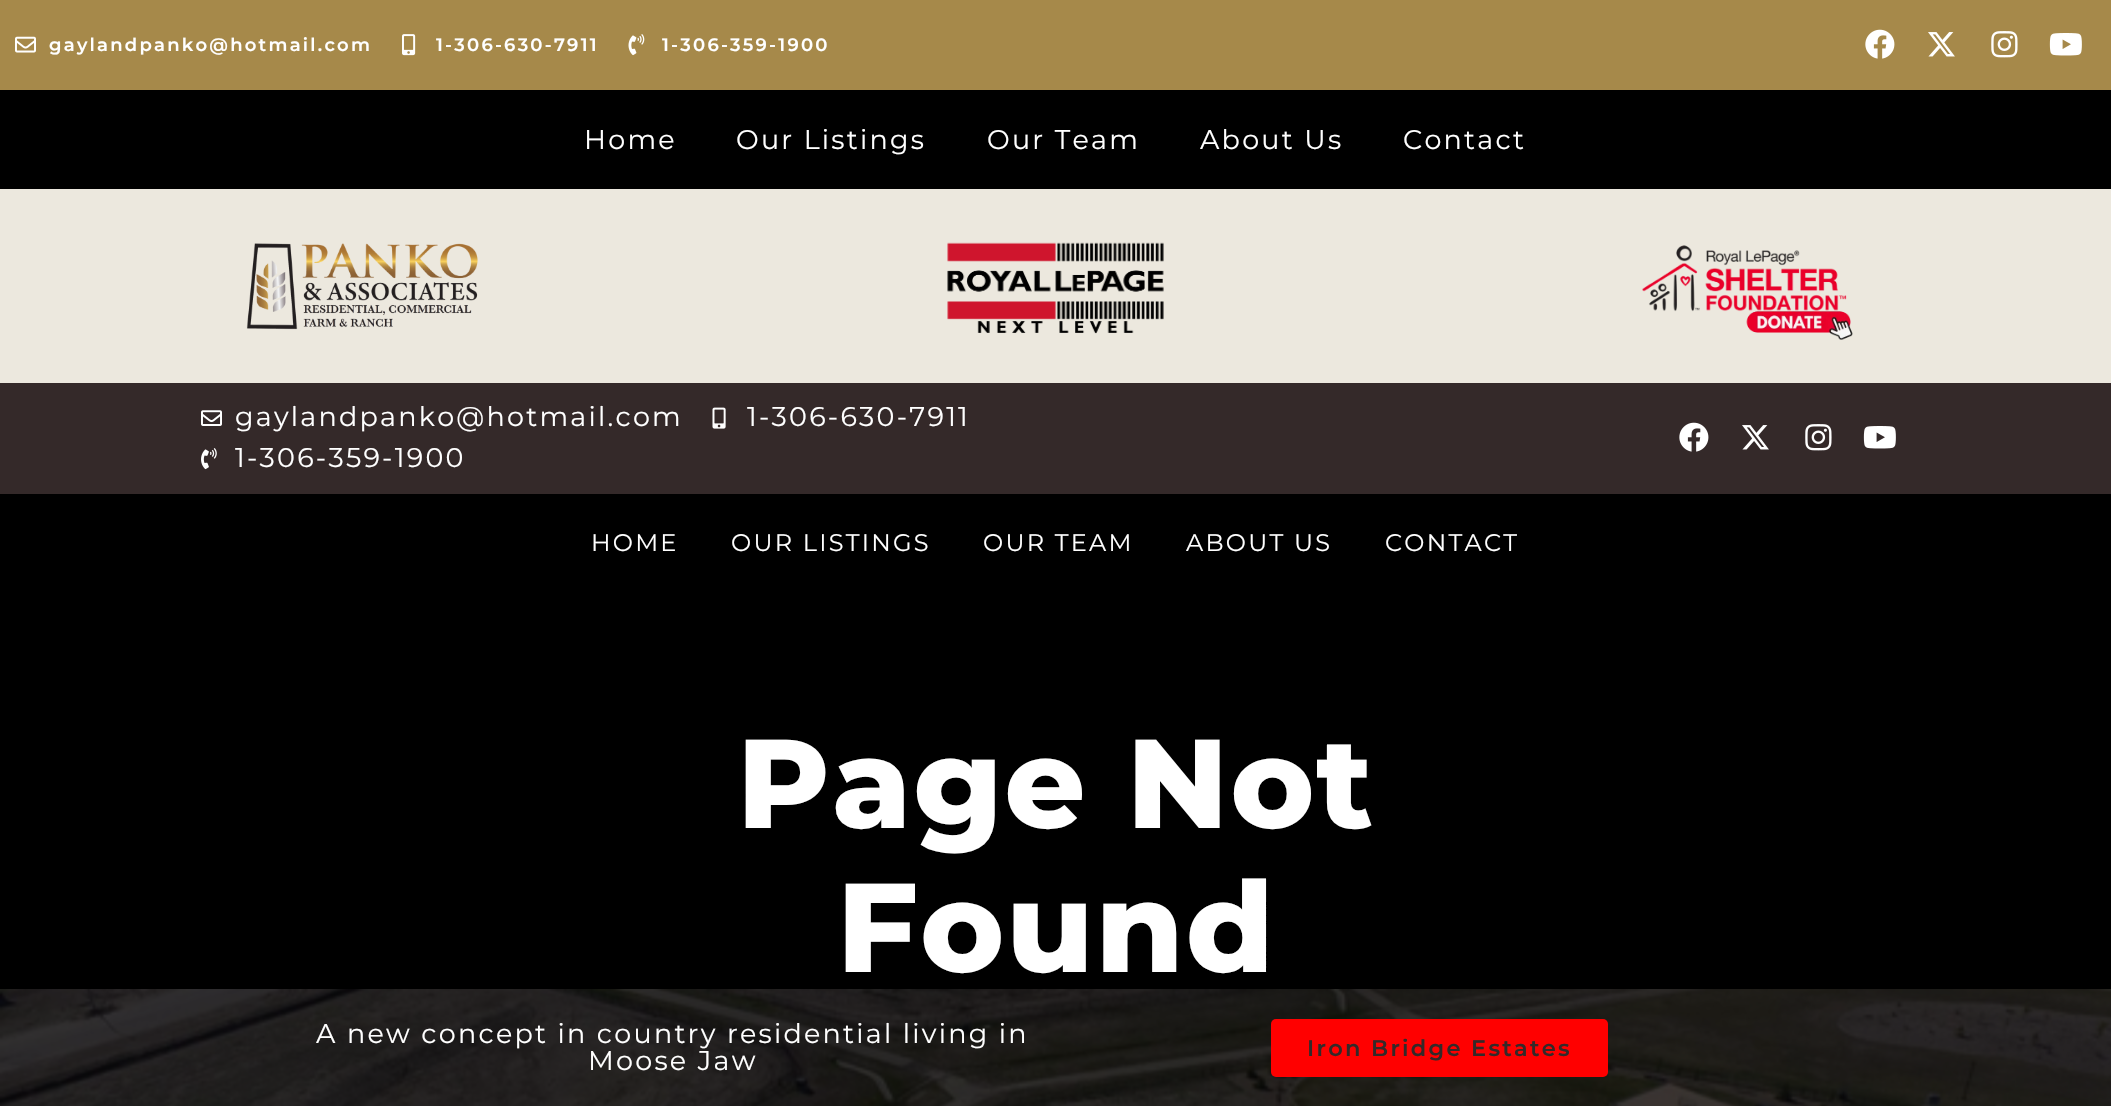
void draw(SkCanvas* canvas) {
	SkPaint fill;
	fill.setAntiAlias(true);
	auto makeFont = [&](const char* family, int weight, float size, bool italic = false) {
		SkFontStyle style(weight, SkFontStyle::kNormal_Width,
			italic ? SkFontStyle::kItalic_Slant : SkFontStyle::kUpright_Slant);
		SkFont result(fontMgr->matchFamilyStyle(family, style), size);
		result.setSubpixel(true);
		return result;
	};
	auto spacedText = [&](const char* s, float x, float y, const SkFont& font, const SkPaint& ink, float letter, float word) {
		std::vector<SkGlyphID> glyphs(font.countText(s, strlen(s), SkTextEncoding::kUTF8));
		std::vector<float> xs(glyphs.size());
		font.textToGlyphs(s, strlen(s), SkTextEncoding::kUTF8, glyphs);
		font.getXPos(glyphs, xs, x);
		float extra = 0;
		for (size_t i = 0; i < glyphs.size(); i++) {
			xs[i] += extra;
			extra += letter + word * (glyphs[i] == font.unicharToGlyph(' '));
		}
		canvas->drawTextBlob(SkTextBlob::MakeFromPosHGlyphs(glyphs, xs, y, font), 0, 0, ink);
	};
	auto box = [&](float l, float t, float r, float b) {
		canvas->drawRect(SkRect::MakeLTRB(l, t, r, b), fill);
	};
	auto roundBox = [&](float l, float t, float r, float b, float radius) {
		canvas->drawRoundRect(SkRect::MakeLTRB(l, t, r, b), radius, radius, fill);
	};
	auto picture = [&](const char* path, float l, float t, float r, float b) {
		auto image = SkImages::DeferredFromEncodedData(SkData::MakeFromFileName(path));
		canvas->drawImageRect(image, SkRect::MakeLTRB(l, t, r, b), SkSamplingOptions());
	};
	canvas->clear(0xFF000000);
	fill.setColor(0xFFA6894A);
	box(0, 0, 2111, 90);
	picture("image0.png", 15, 36, 36, 53);
	picture("image1.png", 402, 34, 416, 56);
	picture("image2.png", 628, 34, 645, 56);
	picture("image3.png", 1865, 29, 1895, 59);
	picture("image4.png", 1928, 32, 1955, 57);
	picture("image5.png", 1991, 31, 2018, 58);
	picture("image6.png", 2049, 33, 2082, 56);
	fill.setColor(0xFFECE8DE);
	box(0, 189, 2111, 383);
	picture("image7.png", 246, 243, 478, 330);
	picture("image8.png", 947, 242, 1164, 334);
	picture("image9.png", 1642, 245, 1853, 340);
	fill.setColor(0xFF342929);
	box(0, 383, 2111, 494);
	picture("image10.png", 201, 410, 222, 426);
	picture("image11.png", 712, 407, 726, 429);
	picture("image12.png", 201, 448, 217, 470);
	picture("image13.png", 1679, 422, 1709, 452);
	picture("image14.png", 1742, 425, 1769, 450);
	picture("image15.png", 1805, 424, 1832, 451);
	picture("image16.png", 1863, 426, 1896, 449);
	picture("image17.png", 0, 989, 2111, 1106);
	fill.setColor(0xFFFF0000);
	roundBox(1271, 1019, 1608, 1077, 5);
	auto font1 = makeFont("Montserrat", 600, 18);
	fill.setColor(0xFFFFFFFF);
	spacedText("gaylandpanko@hotmail.com", 49, 51, font1, fill, 2.25f, 0);
	spacedText("1-306-630-7911", 436, 51, font1, fill, 2.25f, 0);
	spacedText("1-306-359-1900", 662, 51, font1, fill, 2.25f, 0);
	auto font2 = makeFont("Montserrat", 400, 27);
	spacedText("Home", 584, 149, font2, fill, 2.25f, 0);
	spacedText("Our Listings", 736, 149, font2, fill, 2.25f, 0);
	spacedText("Our Team", 987, 149, font2, fill, 2.25f, 0);
	spacedText("About Us", 1200, 149, font2, fill, 2.25f, 0);
	spacedText("Contact", 1403, 149, font2, fill, 2.25f, 0);
	spacedText("gaylandpanko@hotmail.com", 235, 426, font2, fill, 2.25f, 0);
	spacedText("1-306-630-7911", 747, 426, font2, fill, 2.25f, 0);
	spacedText("1-306-359-1900", 235, 467, font2, fill, 2.25f, 0);
	auto font3 = makeFont("Montserrat", 400, 24);
	spacedText("HOME", 591, 551, font3, fill, 2.25f, 0);
	spacedText("OUR LISTINGS", 731, 551, font3, fill, 2.25f, 0);
	spacedText("OUR TEAM", 983, 551, font3, fill, 2.25f, 0);
	spacedText("ABOUT US", 1186, 551, font3, fill, 2.25f, 0);
	spacedText("CONTACT", 1385, 551, font3, fill, 2.25f, 0);
	auto font4 = makeFont("Montserrat", 800, 126);
	spacedText("Page Not", 737, 828, font4, fill, 2.25f, 0);
	spacedText("Found", 837, 972, font4, fill, 2.25f, 0);
	spacedText("A new concept in country residential living in", 316, 1043, font2, fill, 2.25f, 0);
	spacedText("Moose Jaw", 588, 1070, font2, fill, 2.25f, 0);
	auto font5 = makeFont("Montserrat", 600, 22.5f);
	fill.setColor(0xFF342929);
	spacedText("Iron Bridge Estates", 1307, 1056, font5, fill, 2.25f, 0);
}
